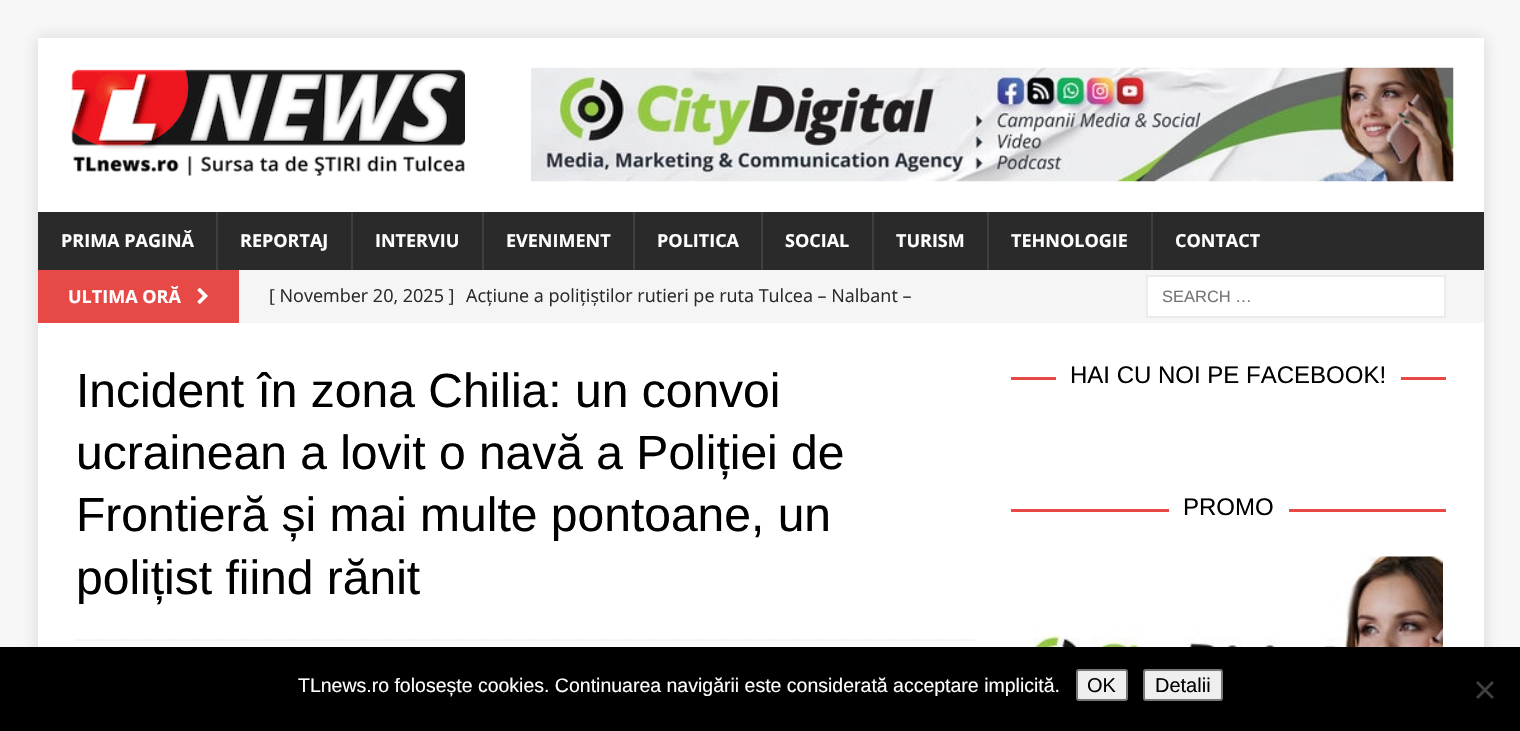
void draw(SkCanvas* canvas) {
	SkPaint fill;
	fill.setAntiAlias(true);
	auto makeFont = [&](const char* family, int weight, float size, bool italic = false) {
		SkFontStyle style(weight, SkFontStyle::kNormal_Width,
			italic ? SkFontStyle::kItalic_Slant : SkFontStyle::kUpright_Slant);
		SkFont result(fontMgr->matchFamilyStyle(family, style), size);
		result.setSubpixel(true);
		return result;
	};
	auto text = [&](const char* s, float x, float y, const SkFont& font) {
		canvas->drawString(s, x, y, font, fill);
	};
	auto box = [&](float l, float t, float r, float b) {
		canvas->drawRect(SkRect::MakeLTRB(l, t, r, b), fill);
	};
	auto picture = [&](const char* path, float l, float t, float r, float b) {
		auto image = SkImages::DeferredFromEncodedData(SkData::MakeFromFileName(path));
		canvas->drawImageRect(image, SkRect::MakeLTRB(l, t, r, b), SkSamplingOptions());
	};
	canvas->clear(0xFFF7F7F7);
	fill.setColor(0x2B323232);
	fill.setMaskFilter(SkMaskFilter::MakeBlur(kNormal_SkBlurStyle, 7.5f));
	canvas->drawRect(SkRect::MakeLTRB(38, 38, 1484, 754), fill);
	fill.setMaskFilter(nullptr);
	fill.setColor(0xFFFFFFFF);
	box(38, 38, 1484, 212);
	picture("image0.png", 71, 69, 465, 176);
	picture("image1.png", 531, 67, 1454, 182);
	fill.setColor(0xFF2A2A2A);
	box(38, 212, 1484, 270);
	fill.setColor(0xFF3F3F3F);
	box(216, 212, 218, 270);
	box(351, 212, 353, 270);
	box(482, 212, 484, 270);
	box(633, 212, 635, 270);
	box(761, 212, 763, 270);
	box(872, 212, 874, 270);
	box(987, 212, 989, 270);
	box(1151, 212, 1153, 270);
	fill.setColor(0xFFF5F5F5);
	box(239, 270, 1484, 323);
	fill.setColor(0xFFE64946);
	box(38, 270, 239, 323);
	picture("image2.png", 197, 287, 208, 304);
	fill.setColor(0xFFFFFFFF);
	canvas->drawRect(SkRect::MakeLTRB(1147, 276, 1445, 317), fill);
	fill.setStyle(SkPaint::kStroke_Style);
	fill.setStrokeWidth(2);
	fill.setColor(0xFFEBEBEB);
	canvas->drawRect(SkRect::MakeLTRB(1147, 276, 1445, 317), fill);
	fill.setStyle(SkPaint::kFill_Style);
	fill.setColor(0xFFFFFFFF);
	box(38, 323, 1484, 647);
	fill.setStyle(SkPaint::kStroke_Style);
	fill.setStrokeWidth(1.5f);
	fill.setColor(0xFFEBEBEB);
	fill.setPathEffect(SkDashPathEffect::Make({{1.5f, 1.5f}}, 0));
	canvas->drawPath(SkPathBuilder().moveTo(75, 640).lineTo(978, 640).detach(), fill);
	fill.setPathEffect(nullptr);
	fill.setStyle(SkPaint::kFill_Style);
	fill.setColor(0xFFE64946);
	box(1011, 377, 1446, 380);
	fill.setColor(0xFFFFFFFF);
	box(1056, 377, 1401, 380);
	fill.setColor(0xFFE64946);
	box(1011, 509, 1446, 512);
	fill.setColor(0xFFFFFFFF);
	box(1169, 509, 1289, 512);
	picture("image3.png", 1011, 556, 1443, 647);
	fill.setColor(0xFF000000);
	box(0, 647, 1520, 731);
	fill.setColor(0xFFEFEFEF);
	canvas->drawRoundRect(SkRect::MakeLTRB(1077, 670, 1127, 700), 2, 2, fill);
	fill.setStyle(SkPaint::kStroke_Style);
	fill.setStrokeWidth(2);
	fill.setColor(0xFF767676);
	canvas->drawRoundRect(SkRect::MakeLTRB(1077, 670, 1127, 700), 2, 2, fill);
	fill.setStyle(SkPaint::kFill_Style);
	fill.setColor(0xFFEFEFEF);
	canvas->drawRoundRect(SkRect::MakeLTRB(1144, 670, 1222, 700), 2, 2, fill);
	fill.setStyle(SkPaint::kStroke_Style);
	fill.setColor(0xFF767676);
	canvas->drawRoundRect(SkRect::MakeLTRB(1144, 670, 1222, 700), 2, 2, fill);
	fill.setStyle(SkPaint::kFill_Style);
	fill.setColor(0xFF404040);
	canvas->drawPath(SkPathBuilder().moveTo(1492, 681).lineTo(1494, 683).lineTo(1478, 699).lineTo(1476, 697).close().detach(), fill);
	canvas->drawPath(SkPathBuilder().moveTo(1476, 683).lineTo(1478, 681).lineTo(1494, 697).lineTo(1492, 699).close().detach(), fill);
	auto font1 = makeFont("Open Sans", 700, 18);
	fill.setColor(0xFFFFFFFF);
	text("PRIMA PAGINĂ", 61, 247, font1);
	text("REPORTAJ", 240, 247, font1);
	text("INTERVIU", 375, 247, font1);
	text("EVENIMENT", 506, 247, font1);
	text("POLITICA", 657, 247, font1);
	text("SOCIAL", 785, 247, font1);
	text("TURISM", 896, 247, font1);
	text("TEHNOLOGIE", 1011, 247, font1);
	text("CONTACT", 1175, 247, font1);
	text("ULTIMA ORĂ", 68, 303, font1);
	auto font2 = makeFont("Open Sans", 400, 18);
	fill.setColor(0xFF2A2A2A);
	text("[ November 20, 2025 ]", 269, 302, font2);
	text("Acțiune a polițiștilor rutieri pe ruta Tulcea – Nalbant –", 466, 302, font2);
	auto font3 = makeFont("Liberation Sans", 400, 16.5f);
	fill.setColor(0xFF757575);
	text("SEARCH …", 1162, 302, font3);
	auto font4 = makeFont("Liberation Sans", 400, 48);
	fill.setColor(0xFF000000);
	text("Incident în zona Chilia: un convoi", 76, 407, font4);
	text("ucrainean a lovit o navă a Poliției de", 76, 469, font4);
	text("Frontieră și mai multe pontoane, un", 76, 531, font4);
	text("polițist fiind rănit", 76, 594, font4);
	auto font5 = makeFont("Liberation Sans", 400, 24);
	text("HAI CU NOI PE FACEBOOK!", 1070, 383, font5);
	text("PROMO", 1183, 515, font5);
	auto font6 = makeFont("Liberation Sans", 400, 19.5f);
	fill.setColor(0xFFFFFFFF);
	text("TLnews.ro folosește cookies. Continuarea navigării este considerată acceptare implicită.", 298, 692, font6);
	auto font7 = makeFont("Liberation Sans", 400, 20);
	fill.setColor(0xFF000000);
	text("OK", 1087, 692, font7);
	text("Detalii", 1155, 692, font7);
}
